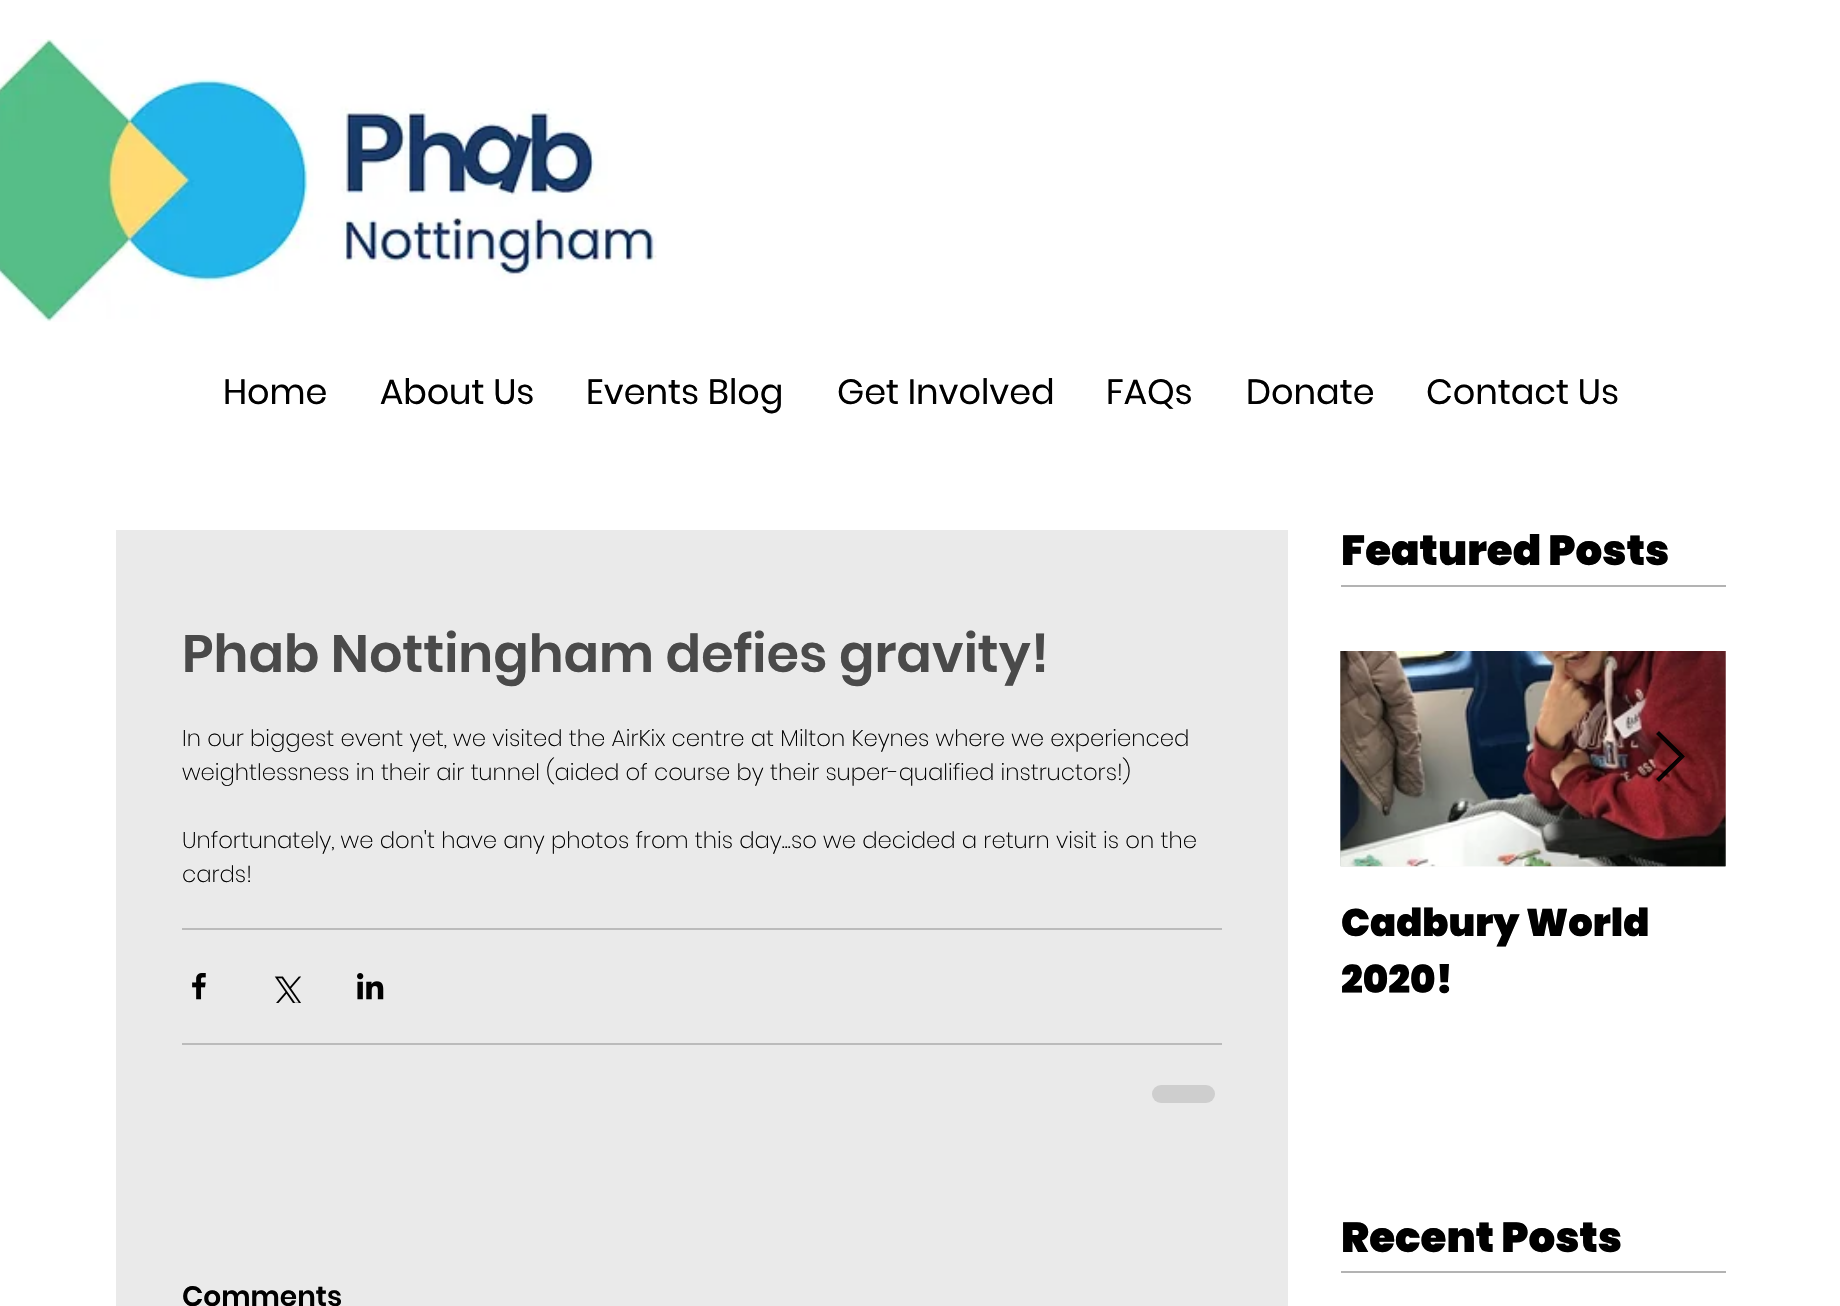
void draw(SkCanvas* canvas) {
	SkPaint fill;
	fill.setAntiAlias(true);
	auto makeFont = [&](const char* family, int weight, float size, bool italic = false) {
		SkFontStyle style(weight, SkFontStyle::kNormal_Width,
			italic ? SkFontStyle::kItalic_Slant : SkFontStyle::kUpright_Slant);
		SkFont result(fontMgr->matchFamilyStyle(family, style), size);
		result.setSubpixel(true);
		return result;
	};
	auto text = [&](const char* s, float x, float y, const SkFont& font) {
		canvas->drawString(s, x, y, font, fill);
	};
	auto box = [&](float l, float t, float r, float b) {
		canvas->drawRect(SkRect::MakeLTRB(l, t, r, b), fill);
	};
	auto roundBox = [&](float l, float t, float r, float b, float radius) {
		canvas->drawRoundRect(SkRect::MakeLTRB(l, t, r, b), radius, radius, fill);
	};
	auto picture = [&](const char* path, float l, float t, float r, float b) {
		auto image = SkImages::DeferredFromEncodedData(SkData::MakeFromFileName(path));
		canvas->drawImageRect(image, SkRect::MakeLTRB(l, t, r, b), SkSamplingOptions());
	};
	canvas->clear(0xFFFFFFFF);
	picture("image0.png", 0, 39, 657, 322);
	fill.setColor(0xFFEAEAEA);
	box(116, 530, 1288, 1306);
	fill.setColor(0xFFBBBBBB);
	box(182, 928, 1222, 930);
	picture("image1.png", 192, 973, 206, 1000);
	picture("image2.png", 274, 976, 301, 1003);
	picture("image3.png", 357, 973, 384, 1000);
	box(182, 1043, 1222, 1045);
	fill.setColor(0xFFCECECE);
	roundBox(1152, 1085, 1215, 1103, 9);
	fill.setColor(0xFFB3B3B3);
	box(1341, 585, 1726, 587);
	picture("image4.png", 1340, 651, 1726, 867);
	picture("image5.png", 1340, 651, 1726, 867);
	fill.setColor(0xE6000000);
	canvas->drawPath(SkPathBuilder().moveTo(1657, 734).lineTo(1659, 732).lineTo(1684, 756).lineTo(1659, 781).lineTo(1657, 779).lineTo(1680, 756).close().detach(), fill);
	fill.setStyle(SkPaint::kStroke_Style);
	fill.setStrokeWidth(1.4f);
	canvas->drawPath(SkPathBuilder().moveTo(1657, 734).lineTo(1659, 732).lineTo(1684, 756.5f).lineTo(1659, 781).lineTo(1657, 779).lineTo(1680, 756.5f).close().detach(), fill);
	fill.setStyle(SkPaint::kFill_Style);
	fill.setColor(0xFFB3B3B3);
	box(1341, 1271, 1726, 1273);
	auto font1 = makeFont("Poppins", 400, 35);
	fill.setColor(0xFF000000);
	text("Home", 223, 404, font1);
	text("About Us", 380, 404, font1);
	text("Events Blog", 586, 404, font1);
	text("Get Involved", 837, 404, font1);
	text("FAQs", 1106, 404, font1);
	text("Donate", 1246, 404, font1);
	text("Contact Us", 1426, 404, font1);
	auto font2 = makeFont("Poppins", 600, 52.5f);
	fill.setColor(0xFF4A4A4A);
	text("Phab Nottingham defies gravity!", 182, 672, font2);
	auto font3 = makeFont("Poppins", 200, 22.75f);
	fill.setColor(0xFF000000);
	text("In our biggest event yet, we visited the AirKix centre at Milton Keynes where we experienced", 182, 746, font3);
	text("weightlessness in their air tunnel (aided of course by their super-qualified instructors!)", 182, 780, font3);
	text("Unfortunately, we don't have any photos from this day...so we decided a return visit is on the", 182, 848, font3);
	text("cards!", 182, 882, font3);
	auto font4 = makeFont("Poppins", 600, 28);
	text("Comments", 182, 1306, font4);
	auto font5 = makeFont("Poppins", 900, 42);
	text("Featured Posts", 1341, 565, font5);
	auto font6 = makeFont("Poppins", 900, 38.5f);
	text("Cadbury World", 1341, 936, font6);
	text("2020!", 1341, 993, font6);
	text("Recent Posts", 1341, 1252, font5);
}
